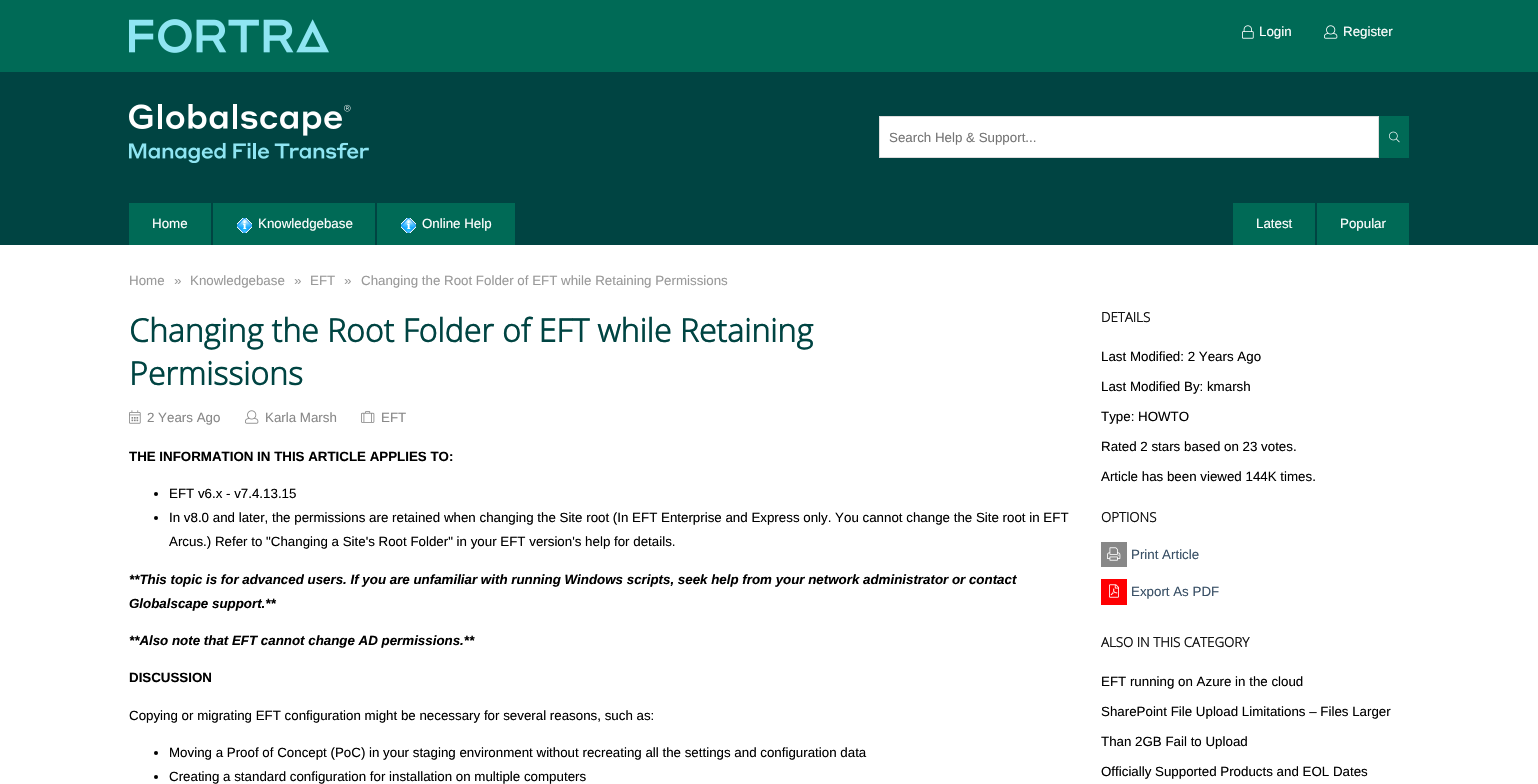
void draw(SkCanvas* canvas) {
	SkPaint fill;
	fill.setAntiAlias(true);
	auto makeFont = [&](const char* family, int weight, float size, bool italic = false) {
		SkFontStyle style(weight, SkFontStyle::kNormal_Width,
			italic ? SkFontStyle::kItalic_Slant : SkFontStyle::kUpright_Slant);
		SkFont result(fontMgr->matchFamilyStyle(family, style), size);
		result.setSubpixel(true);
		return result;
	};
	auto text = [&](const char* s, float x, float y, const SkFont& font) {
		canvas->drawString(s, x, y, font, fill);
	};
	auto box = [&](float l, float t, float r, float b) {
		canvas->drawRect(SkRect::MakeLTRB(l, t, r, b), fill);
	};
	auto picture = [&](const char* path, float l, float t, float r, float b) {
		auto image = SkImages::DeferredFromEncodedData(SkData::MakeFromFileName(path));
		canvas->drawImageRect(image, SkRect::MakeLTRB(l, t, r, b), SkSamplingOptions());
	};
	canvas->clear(0xFFFFFFFF);
	fill.setColor(0xFF006A56);
	box(0, 0, 1538, 72);
	picture("image0.png", 129, 19, 329, 53);
	picture("image1.png", 1242, 25, 1254, 39);
	picture("image2.png", 1324, 25, 1338, 39);
	fill.setColor(0xFF004442);
	box(0, 72, 1538, 245);
	picture("image3.png", 129, 104, 369, 163);
	fill.setColor(0xFFFFFFFF);
	canvas->drawRect(SkRect::MakeLTRB(879.5f, 116.5f, 1378.5f, 157.5f), fill);
	fill.setStyle(SkPaint::kStroke_Style);
	fill.setStrokeWidth(1);
	fill.setColor(0xFFDDDDDD);
	canvas->drawRect(SkRect::MakeLTRB(879.5f, 116.5f, 1378.5f, 157.5f), fill);
	fill.setStyle(SkPaint::kFill_Style);
	fill.setColor(0xFF006A56);
	box(1379, 116, 1409, 158);
	picture("image4.png", 1389, 131, 1400, 143);
	box(129, 203, 211, 245);
	box(213, 203, 375, 245);
	picture("image5.png", 237, 218, 252, 233);
	box(377, 203, 515, 245);
	picture("image5.png", 401, 218, 416, 233);
	box(1233, 203, 1315, 245);
	box(1317, 203, 1409, 245);
	picture("image6.png", 129, 410, 141, 424);
	picture("image7.png", 245, 410, 259, 424);
	picture("image8.png", 361, 411, 375, 423);
	fill.setColor(0xFF000000);
	canvas->drawCircle(156, 494, 2, fill);
	canvas->drawCircle(156, 518, 2, fill);
	canvas->drawCircle(156, 753, 2, fill);
	canvas->drawCircle(156, 777, 2, fill);
	fill.setColor(0xFF888888);
	box(1101, 542, 1127, 567);
	picture("image9.png", 1107, 547, 1121, 561);
	fill.setColor(0xFFFE0002);
	box(1101, 579, 1127, 605);
	picture("image10.png", 1109, 584, 1119, 598);
	auto font1 = makeFont("Liberation Sans", 400, 13.33f);
	fill.setColor(0xFFFFFFFF);
	text("Login", 1259, 36, font1);
	text("Register", 1343, 36, font1);
	fill.setColor(0xFF757575);
	text("Search Help & Support...", 889, 142, font1);
	fill.setColor(0xFFFFFFFF);
	text("Home", 152, 228, font1);
	text("Knowledgebase", 258, 228, font1);
	text("Online Help", 422, 228, font1);
	text("Latest", 1256, 228, font1);
	text("Popular", 1340, 228, font1);
	fill.setColor(0xFF999999);
	text("Home", 129, 285, font1);
	text("»", 174, 285, font1);
	text("Knowledgebase", 190, 285, font1);
	text("»", 294, 285, font1);
	text("EFT", 310, 285, font1);
	text("»", 344, 285, font1);
	text("Changing the Root Folder of EFT while Retaining Permissions", 361, 285, font1);
	auto font2 = makeFont("Open Sans", 700, 32);
	fill.setColor(0xFF004442);
	text("Changing the Root Folder of EFT while Retaining", 129, 342, font2);
	text("Permissions", 129, 385, font2);
	fill.setColor(0xFF888888);
	text("2 Years Ago", 147, 422, font1);
	text("Karla Marsh", 265, 422, font1);
	text("EFT", 381, 422, font1);
	auto font3 = makeFont("Liberation Sans", 700, 13.33f);
	fill.setColor(0xFF000000);
	text("THE INFORMATION IN THIS ARTICLE APPLIES TO:", 129, 461, font3);
	text("EFT v6.x - v7.4.13.15", 169, 498, font1);
	text("In v8.0 and later, the permissions are retained when changing the Site root (In EFT Enterprise and Express only. You cannot change the Site root in EFT", 169, 522, font1);
	text("Arcus.) Refer to \"Changing a Site's Root Folder\" in your EFT version's help for details.", 169, 546, font1);
	auto font4 = makeFont("Liberation Sans", 700, 13.33f, true);
	text("**This topic is for advanced users. If you are unfamiliar with running Windows scripts, seek help from your network administrator or contact", 129, 584, font4);
	text("Globalscape support.**", 129, 608, font4);
	text("**Also note that EFT cannot change AD permissions.**", 129, 645, font4);
	text("DISCUSSION", 129, 682, font3);
	text("Copying or migrating EFT configuration might be necessary for several reasons, such as:", 129, 720, font1);
	text("Moving a Proof of Concept (PoC) in your staging environment without recreating all the settings and configuration data", 169, 757, font1);
	text("Creating a standard configuration for installation on multiple computers", 169, 781, font1);
	auto font5 = makeFont("Open Sans", 700, 13.33f);
	fill.setColor(0xFF111111);
	text("DETAILS", 1101, 322, font5);
	fill.setColor(0xFF000000);
	text("Last Modified: 2 Years Ago", 1101, 361, font1);
	text("Last Modified By: kmarsh", 1101, 391, font1);
	text("Type: HOWTO", 1101, 421, font1);
	text("Rated 2 stars based on 23 votes.", 1101, 451, font1);
	text("Article has been viewed 144K times.", 1101, 481, font1);
	fill.setColor(0xFF111111);
	text("OPTIONS", 1101, 522, font5);
	fill.setColor(0xFF384F65);
	text("Print Article", 1131, 559, font1);
	text("Export As PDF", 1131, 596, font1);
	fill.setColor(0xFF111111);
	text("ALSO IN THIS CATEGORY", 1101, 647, font5);
	fill.setColor(0xFF000000);
	text("EFT running on Azure in the cloud", 1101, 686, font1);
	text("SharePoint File Upload Limitations – Files Larger", 1101, 716, font1);
	text("Than 2GB Fail to Upload", 1101, 746, font1);
	text("Officially Supported Products and EOL Dates", 1101, 776, font1);
}
